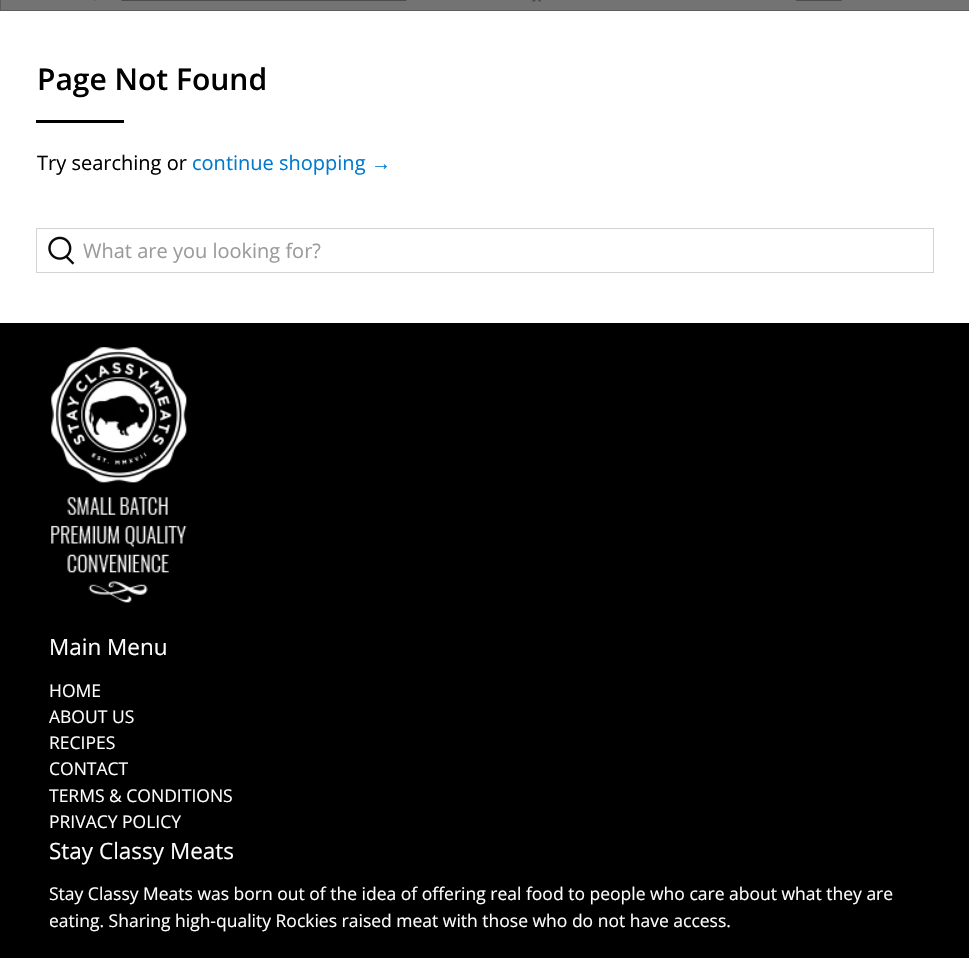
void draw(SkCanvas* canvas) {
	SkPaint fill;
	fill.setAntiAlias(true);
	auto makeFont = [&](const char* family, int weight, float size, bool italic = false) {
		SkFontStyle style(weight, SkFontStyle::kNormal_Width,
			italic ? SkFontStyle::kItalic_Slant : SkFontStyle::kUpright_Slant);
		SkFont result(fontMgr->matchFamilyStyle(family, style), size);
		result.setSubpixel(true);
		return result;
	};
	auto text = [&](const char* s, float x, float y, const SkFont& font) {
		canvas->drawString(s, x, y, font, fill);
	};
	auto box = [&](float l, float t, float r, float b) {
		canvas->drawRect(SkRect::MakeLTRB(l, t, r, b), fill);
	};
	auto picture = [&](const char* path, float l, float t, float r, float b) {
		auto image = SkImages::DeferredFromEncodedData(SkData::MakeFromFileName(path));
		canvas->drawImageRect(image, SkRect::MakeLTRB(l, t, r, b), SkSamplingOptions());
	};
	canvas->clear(0xFFFFFFFF);
	fill.setColor(0xFF737373);
	canvas->drawRect(SkRect::MakeLTRB(0.5f, -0.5f, 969.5f, 10.5f), fill);
	fill.setStyle(SkPaint::kStroke_Style);
	fill.setStrokeWidth(1);
	fill.setColor(0xFF5C5C5C);
	canvas->drawRect(SkRect::MakeLTRB(0.5f, -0.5f, 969.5f, 10.5f), fill);
	picture("image0.png", 93, 0, 843, 2);
	fill.setStyle(SkPaint::kFill_Style);
	fill.setColor(0xFF000000);
	box(36, 120, 124, 123);
	fill.setStyle(SkPaint::kStroke_Style);
	fill.setColor(0xFFD3D3D3);
	canvas->drawRect(SkRect::MakeLTRB(36.5f, 228.5f, 933.5f, 272.5f), fill);
	picture("image1.png", 48, 236, 75, 265);
	fill.setStyle(SkPaint::kFill_Style);
	fill.setColor(0xFF000000);
	box(0, 323, 969, 958);
	picture("image2.png", 51, 347, 187, 603);
	auto font1 = makeFont("Open Sans", 600, 30);
	text("Page Not Found", 37, 90, font1);
	auto font2 = makeFont("Open Sans", 400, 20);
	text("Try searching or", 37, 170, font2);
	fill.setColor(0xFF007ACE);
	text("continue shopping", 192, 170, font2);
	auto font3 = makeFont("Liberation Sans", 400, 20);
	text("→", 371, 170, font3);
	fill.setColor(0xFF9B9B9B);
	text("What are you looking for?", 83, 258, font2);
	auto font4 = makeFont("Open Sans", 400, 22.5f);
	fill.setColor(0xFFFFFFFF);
	text("Main Menu", 49, 655, font4);
	auto font5 = makeFont("Open Sans", 400, 17.5f);
	text("HOME", 49, 697, font5);
	text("ABOUT US", 49, 723, font5);
	text("RECIPES", 49, 749, font5);
	text("CONTACT", 49, 775, font5);
	text("TERMS & CONDITIONS", 49, 802, font5);
	text("PRIVACY POLICY", 49, 828, font5);
	text("Stay Classy Meats", 49, 859, font4);
	text("Stay Classy Meats was born out of the idea of offering real food to people who care about what they are", 49, 900, font5);
	text("eating. Sharing high-quality Rockies raised meat with those who do not have access.", 49, 927, font5);
}
